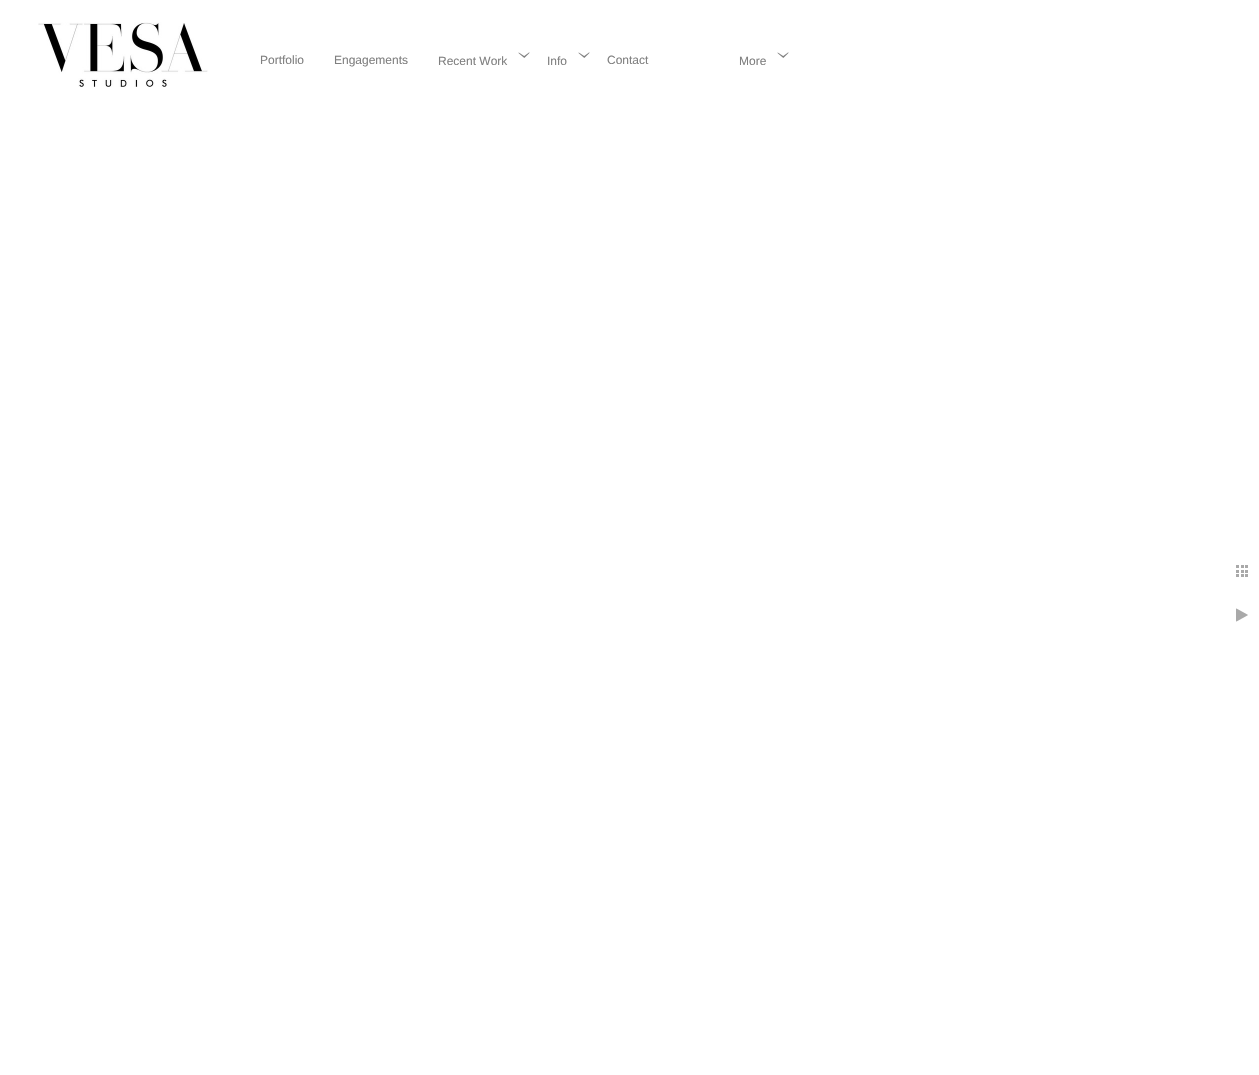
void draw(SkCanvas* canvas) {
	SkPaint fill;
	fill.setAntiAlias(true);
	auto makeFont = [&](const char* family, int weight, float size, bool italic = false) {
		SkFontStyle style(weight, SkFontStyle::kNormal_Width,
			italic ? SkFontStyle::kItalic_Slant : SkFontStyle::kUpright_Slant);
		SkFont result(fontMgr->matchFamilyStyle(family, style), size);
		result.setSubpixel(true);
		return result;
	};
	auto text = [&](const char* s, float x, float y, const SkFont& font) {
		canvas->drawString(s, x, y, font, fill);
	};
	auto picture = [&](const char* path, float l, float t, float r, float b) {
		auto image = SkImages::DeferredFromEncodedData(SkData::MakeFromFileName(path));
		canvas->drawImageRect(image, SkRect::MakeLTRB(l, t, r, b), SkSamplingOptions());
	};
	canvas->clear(0xFFFFFFFF);
	picture("image0.png", 38, 22, 208, 87);
	picture("image1.png", 518, 52, 530, 58);
	picture("image1.png", 578, 52, 590, 58);
	picture("image1.png", 777, 52, 789, 58);
	picture("image2.png", 1236, 565, 1248, 577);
	picture("image3.png", 1236, 608, 1248, 622);
	auto font1 = makeFont("Liberation Sans", 400, 12);
	fill.setColor(0xFF808080);
	text("Portfolio", 260, 64, font1);
	text("Engagements", 334, 64, font1);
	text("Recent Work", 438, 65, font1);
	text("Info", 547, 65, font1);
	text("Contact", 607, 64, font1);
	text("More", 739, 65, font1);
}
